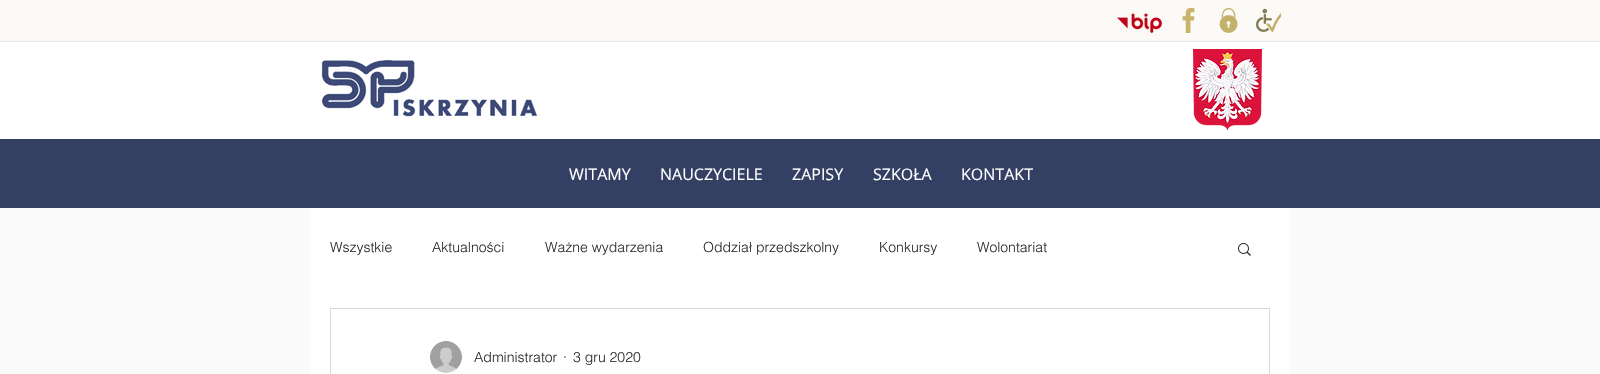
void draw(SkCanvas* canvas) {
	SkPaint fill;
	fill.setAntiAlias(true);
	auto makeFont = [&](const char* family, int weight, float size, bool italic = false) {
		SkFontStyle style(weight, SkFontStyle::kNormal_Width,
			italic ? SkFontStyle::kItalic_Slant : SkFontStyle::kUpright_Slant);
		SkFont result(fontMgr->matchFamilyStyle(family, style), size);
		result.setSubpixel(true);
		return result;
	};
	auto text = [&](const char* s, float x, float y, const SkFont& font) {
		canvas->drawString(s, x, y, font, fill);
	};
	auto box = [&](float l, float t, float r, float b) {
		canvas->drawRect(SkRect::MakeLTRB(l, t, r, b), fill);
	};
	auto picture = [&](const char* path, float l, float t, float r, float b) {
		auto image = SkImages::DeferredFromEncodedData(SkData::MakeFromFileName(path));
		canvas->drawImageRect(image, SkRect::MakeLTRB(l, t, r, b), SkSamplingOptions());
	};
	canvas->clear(0xFFFAFAFA);
	fill.setColor(0xFFFFFFFF);
	box(0, 42, 1600, 139);
	fill.setColor(0xFFFBFAF7);
	box(0, 0, 1600, 41);
	picture("image0.png", 1182, 8, 1195, 33);
	picture("image1.png", 1219, 8, 1238, 33);
	picture("image2.png", 1256, 8, 1281, 33);
	picture("image3.png", 1117, 13, 1162, 33);
	fill.setColor(0xFFE7E7E7);
	box(0, 41, 1600, 42);
	picture("image4.png", 321, 59, 537, 117);
	picture("image5.png", 1193, 49, 1262, 130);
	fill.setColor(0xFF343F64);
	box(0, 139, 1600, 208);
	fill.setColor(0xFFFFFFFF);
	box(310, 208, 1290, 374);
	picture("image6.png", 1238, 243, 1251, 256);
	fill.setStyle(SkPaint::kStroke_Style);
	fill.setStrokeWidth(1);
	fill.setColor(0xFFD9D9D9);
	canvas->drawRect(SkRect::MakeLTRB(330.5f, 308.5f, 1269.5f, 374.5f), fill);
	picture("image7.png", 430, 341, 462, 373);
	auto font1 = makeFont("Open Sans", 400, 16);
	fill.setStyle(SkPaint::kFill_Style);
	fill.setColor(0xFFFFFFFF);
	text("WITAMY", 569, 180, font1);
	text("NAUCZYCIELE", 660, 180, font1);
	text("ZAPISY", 792, 180, font1);
	text("SZKOŁA", 873, 180, font1);
	text("KONTAKT", 961, 180, font1);
	auto font2 = makeFont("helvetica", 300, 14);
	fill.setColor(0xFF2F2E2E);
	text("Wszystkie", 330, 252, font2);
	text("Aktualności", 432, 252, font2);
	text("Ważne wydarzenia", 545, 252, font2);
	text("Oddział przedszkolny", 703, 252, font2);
	text("Konkursy", 879, 252, font2);
	text("Wolontariat", 977, 252, font2);
	text("Administrator", 474, 362, font2);
	text("·", 563, 362, font2);
	text("3 gru 2020", 573, 362, font2);
}
